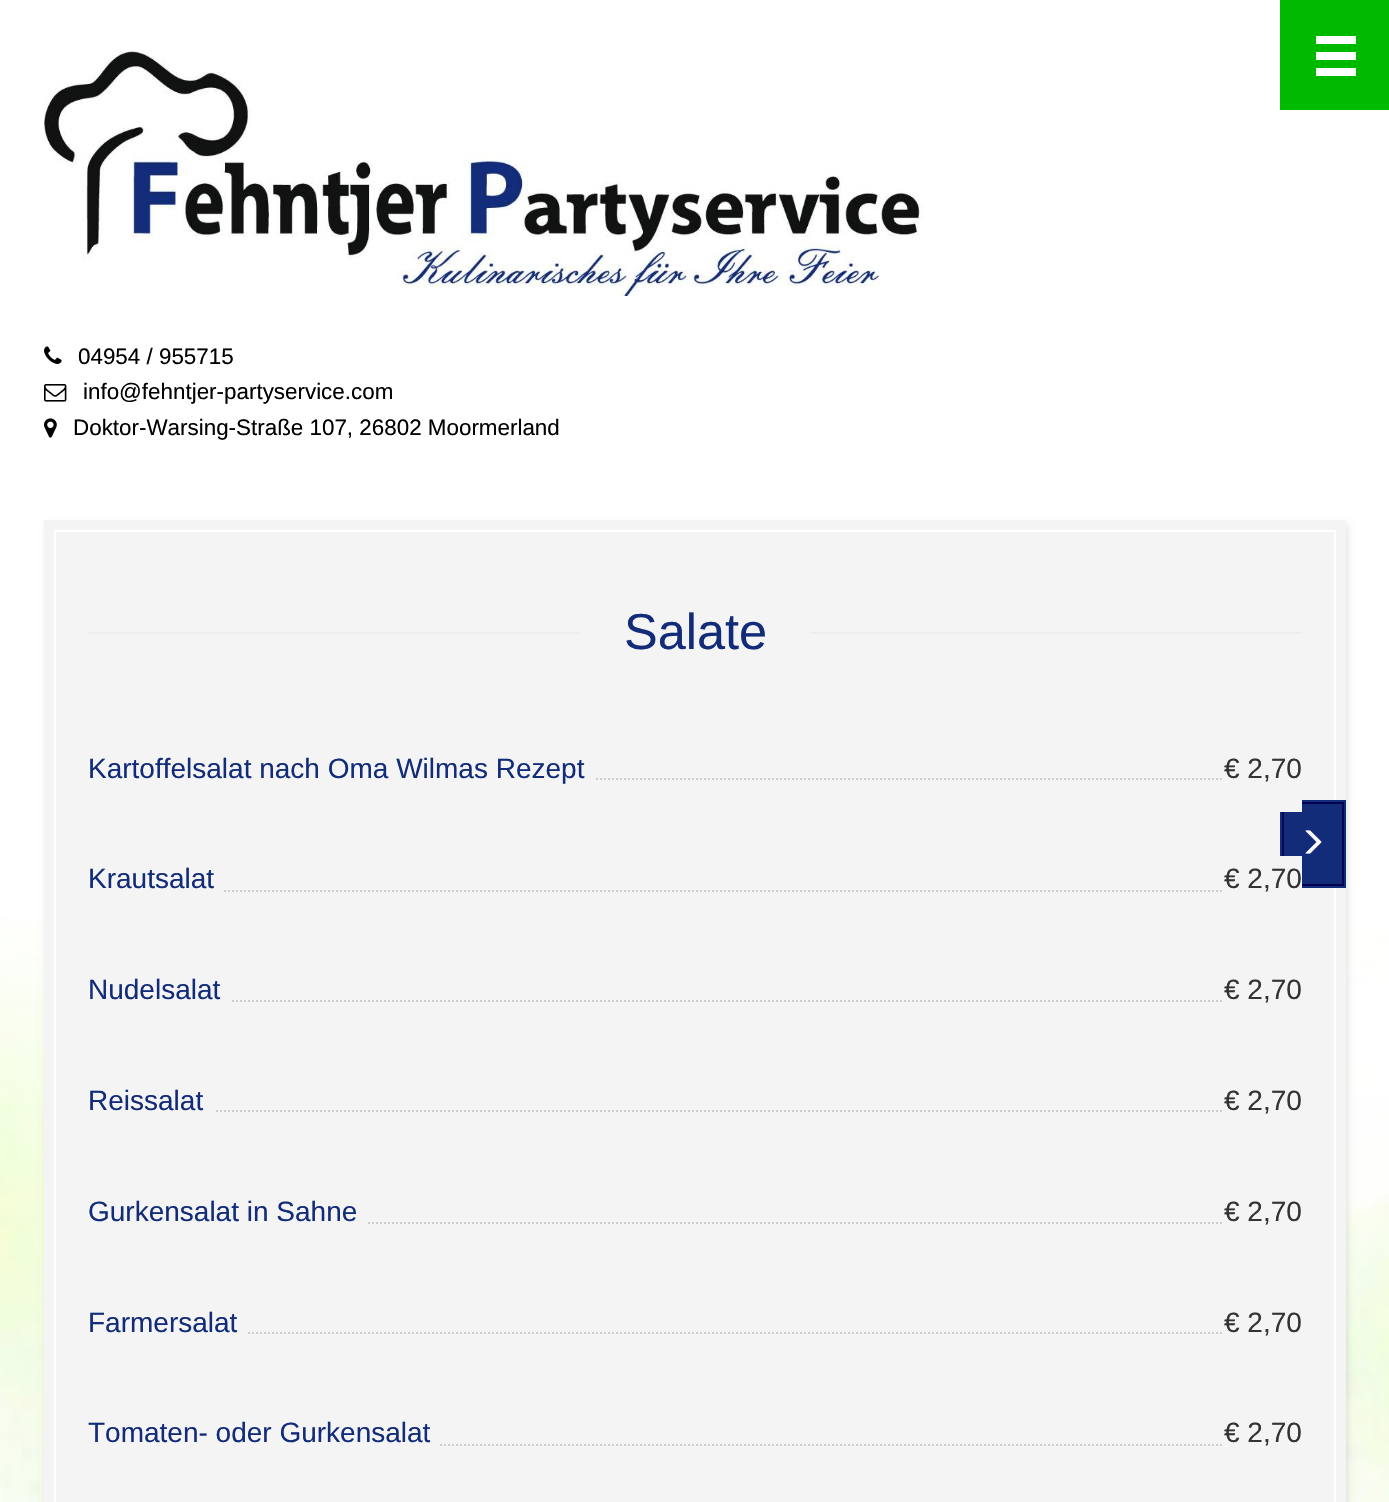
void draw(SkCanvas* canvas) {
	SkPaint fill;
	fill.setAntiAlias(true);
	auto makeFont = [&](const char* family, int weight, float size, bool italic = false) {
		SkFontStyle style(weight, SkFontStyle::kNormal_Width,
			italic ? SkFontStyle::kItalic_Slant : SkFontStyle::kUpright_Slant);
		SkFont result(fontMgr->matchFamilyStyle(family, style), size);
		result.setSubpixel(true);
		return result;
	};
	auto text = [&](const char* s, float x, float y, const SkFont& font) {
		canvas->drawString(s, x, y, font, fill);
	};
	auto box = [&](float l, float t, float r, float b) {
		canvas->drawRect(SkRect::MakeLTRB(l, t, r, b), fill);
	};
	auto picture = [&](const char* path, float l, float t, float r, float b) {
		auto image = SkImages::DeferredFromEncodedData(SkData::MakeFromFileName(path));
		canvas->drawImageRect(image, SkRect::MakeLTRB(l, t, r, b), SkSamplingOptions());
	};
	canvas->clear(0xFFFFFFFF);
	fill.setColor(0xFF00BA02);
	box(1280, 0, 1389, 110);
	picture("image0.png", 1316, 36, 1356, 76);
	picture("image1.png", 44, 50, 924, 296);
	picture("image2.png", 44, 346, 62, 364);
	picture("image3.png", 44, 384, 67, 402);
	picture("image4.png", 44, 418, 57, 438);
	picture("image5.png", 0, 916, 1389, 1502);
	fill.setColor(0x1A000000);
	fill.setMaskFilter(SkMaskFilter::MakeBlur(kNormal_SkBlurStyle, 3));
	canvas->drawRect(SkRect::MakeLTRB(46, 524, 1348, 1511), fill);
	fill.setMaskFilter(nullptr);
	fill.setColor(0xFFF4F4F4);
	box(44, 520, 1346, 1502);
	fill.setStyle(SkPaint::kStroke_Style);
	fill.setStrokeWidth(2);
	fill.setColor(0xFFFFFFFF);
	canvas->drawRect(SkRect::MakeLTRB(55, 531, 1335, 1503), fill);
	fill.setStyle(SkPaint::kFill_Style);
	fill.setColor(0xFFEEEEEE);
	box(88, 632, 1302, 634);
	fill.setColor(0xFFF4F4F4);
	box(580, 632, 810, 634);
	fill.setStyle(SkPaint::kStroke_Style);
	fill.setColor(0xFFCCCCCC);
	fill.setPathEffect(SkDashPathEffect::Make({{2, 2}}, 0));
	canvas->drawPath(SkPathBuilder().moveTo(88, 779).lineTo(1302, 779).detach(), fill);
	fill.setPathEffect(nullptr);
	fill.setStyle(SkPaint::kFill_Style);
	fill.setColor(0xFFF4F4F4);
	box(88, 778, 594, 780);
	fill.setColor(0xFF122C79);
	box(1280, 800, 1346, 888);
	fill.setStyle(SkPaint::kStroke_Style);
	fill.setColor(0xFF000451);
	canvas->drawRect(SkRect::MakeLTRB(1283, 803, 1343, 885), fill);
	fill.setStyle(SkPaint::kFill_Style);
	fill.setColor(0xFFF4F4F4);
	box(1224, 778, 1302, 812);
	fill.setStyle(SkPaint::kStroke_Style);
	fill.setColor(0xFFCCCCCC);
	fill.setPathEffect(SkDashPathEffect::Make({{2, 2}}, 0));
	canvas->drawPath(SkPathBuilder().moveTo(88, 891).lineTo(1302, 891).detach(), fill);
	fill.setPathEffect(nullptr);
	fill.setStyle(SkPaint::kFill_Style);
	fill.setColor(0xFFF4F4F4);
	box(88, 890, 222, 892);
	box(1224, 856, 1302, 892);
	fill.setStyle(SkPaint::kStroke_Style);
	fill.setColor(0xFFCCCCCC);
	fill.setPathEffect(SkDashPathEffect::Make({{2, 2}}, 0));
	canvas->drawPath(SkPathBuilder().moveTo(88, 1001).lineTo(1302, 1001).detach(), fill);
	fill.setPathEffect(nullptr);
	fill.setStyle(SkPaint::kFill_Style);
	fill.setColor(0xFFF4F4F4);
	box(88, 1000, 230, 1002);
	box(1224, 1000, 1302, 1002);
	fill.setStyle(SkPaint::kStroke_Style);
	fill.setColor(0xFFCCCCCC);
	fill.setPathEffect(SkDashPathEffect::Make({{2, 2}}, 0));
	canvas->drawPath(SkPathBuilder().moveTo(88, 1111).lineTo(1302, 1111).detach(), fill);
	fill.setPathEffect(nullptr);
	fill.setStyle(SkPaint::kFill_Style);
	fill.setColor(0xFFF4F4F4);
	box(88, 1110, 214, 1112);
	box(1224, 1110, 1302, 1112);
	fill.setStyle(SkPaint::kStroke_Style);
	fill.setColor(0xFFCCCCCC);
	fill.setPathEffect(SkDashPathEffect::Make({{2, 2}}, 0));
	canvas->drawPath(SkPathBuilder().moveTo(88, 1223).lineTo(1302, 1223).detach(), fill);
	fill.setPathEffect(nullptr);
	fill.setStyle(SkPaint::kFill_Style);
	fill.setColor(0xFFF4F4F4);
	box(88, 1222, 366, 1224);
	box(1224, 1222, 1302, 1224);
	fill.setStyle(SkPaint::kStroke_Style);
	fill.setColor(0xFFCCCCCC);
	fill.setPathEffect(SkDashPathEffect::Make({{2, 2}}, 0));
	canvas->drawPath(SkPathBuilder().moveTo(88, 1333).lineTo(1302, 1333).detach(), fill);
	fill.setPathEffect(nullptr);
	fill.setStyle(SkPaint::kFill_Style);
	fill.setColor(0xFFF4F4F4);
	box(88, 1332, 246, 1334);
	box(1224, 1332, 1302, 1334);
	fill.setStyle(SkPaint::kStroke_Style);
	fill.setColor(0xFFCCCCCC);
	fill.setPathEffect(SkDashPathEffect::Make({{2, 2}}, 0));
	canvas->drawPath(SkPathBuilder().moveTo(88, 1445).lineTo(1302, 1445).detach(), fill);
	fill.setPathEffect(nullptr);
	fill.setStyle(SkPaint::kFill_Style);
	fill.setColor(0xFFF4F4F4);
	box(88, 1444, 438, 1446);
	box(1224, 1444, 1302, 1446);
	picture("image6.png", 1305, 830, 1322, 854);
	auto font1 = makeFont("Liberation Sans", 400, 22.4f);
	fill.setColor(0xFF000000);
	text("04954 / 955715", 78, 364, font1);
	text("info@fehntjer-partyservice.com", 83, 399, font1);
	text("Doktor-Warsing-Straße 107, 26802 Moormerland", 73, 435, font1);
	auto font2 = makeFont("Liberation Sans", 400, 50.5f);
	fill.setColor(0xFF122C79);
	text("Salate", 624, 649, font2);
	auto font3 = makeFont("Liberation Sans", 400, 28);
	text("Kartoffelsalat nach Oma Wilmas Rezept", 88, 778, font3);
	fill.setColor(0xFF333333);
	text("€ 2,70", 1224, 778, font3);
	fill.setColor(0xFF122C79);
	text("Krautsalat", 88, 888, font3);
	fill.setColor(0xFF333333);
	text("€ 2,70", 1224, 888, font3);
	fill.setColor(0xFF122C79);
	text("Nudelsalat", 88, 999, font3);
	fill.setColor(0xFF333333);
	text("€ 2,70", 1224, 999, font3);
	fill.setColor(0xFF122C79);
	text("Reissalat", 88, 1110, font3);
	fill.setColor(0xFF333333);
	text("€ 2,70", 1224, 1110, font3);
	fill.setColor(0xFF122C79);
	text("Gurkensalat in Sahne", 88, 1221, font3);
	fill.setColor(0xFF333333);
	text("€ 2,70", 1224, 1221, font3);
	fill.setColor(0xFF122C79);
	text("Farmersalat", 88, 1332, font3);
	fill.setColor(0xFF333333);
	text("€ 2,70", 1224, 1332, font3);
	fill.setColor(0xFF122C79);
	text("Tomaten- oder Gurkensalat", 88, 1442, font3);
	fill.setColor(0xFF333333);
	text("€ 2,70", 1224, 1442, font3);
}
